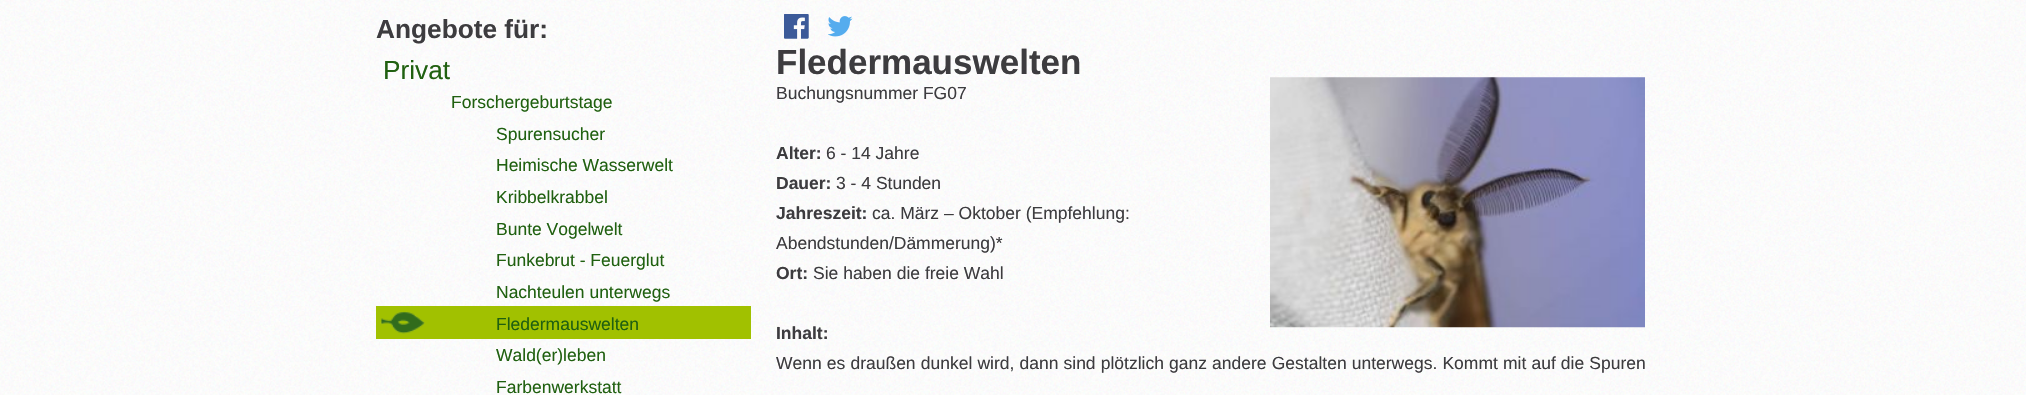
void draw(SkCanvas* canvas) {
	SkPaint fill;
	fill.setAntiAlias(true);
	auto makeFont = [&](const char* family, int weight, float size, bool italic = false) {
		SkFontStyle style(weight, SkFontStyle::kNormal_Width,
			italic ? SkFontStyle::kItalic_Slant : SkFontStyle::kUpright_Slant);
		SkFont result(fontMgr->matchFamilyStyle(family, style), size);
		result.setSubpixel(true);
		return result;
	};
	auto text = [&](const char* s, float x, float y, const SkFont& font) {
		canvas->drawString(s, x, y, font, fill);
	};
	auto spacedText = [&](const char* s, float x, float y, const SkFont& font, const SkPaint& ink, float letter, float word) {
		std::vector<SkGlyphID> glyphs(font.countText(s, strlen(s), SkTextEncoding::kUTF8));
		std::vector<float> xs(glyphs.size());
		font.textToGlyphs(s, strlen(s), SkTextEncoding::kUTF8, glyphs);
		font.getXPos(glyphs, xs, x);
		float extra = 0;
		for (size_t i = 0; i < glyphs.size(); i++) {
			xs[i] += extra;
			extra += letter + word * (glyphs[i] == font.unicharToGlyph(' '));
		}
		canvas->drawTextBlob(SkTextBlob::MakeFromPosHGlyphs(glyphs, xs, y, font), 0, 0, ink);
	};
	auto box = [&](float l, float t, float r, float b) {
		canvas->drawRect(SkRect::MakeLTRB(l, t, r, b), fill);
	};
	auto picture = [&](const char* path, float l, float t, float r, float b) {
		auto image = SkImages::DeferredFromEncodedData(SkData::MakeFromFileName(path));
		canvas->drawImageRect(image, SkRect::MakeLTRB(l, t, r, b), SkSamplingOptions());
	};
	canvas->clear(0xFFFFFFFF);
	picture("image0.png", 0, 0, 2026, 395);
	fill.setColor(0xFFA1C100);
	box(376, 306, 751, 339);
	picture("image1.png", 380, 311, 425, 334);
	picture("image2.png", 784, 14, 809, 39);
	picture("image3.png", 828, 16, 853, 37);
	picture("image4.png", 1270, 77, 1645, 328);
	auto font1 = makeFont("Liberation Sans", 700, 26.25f);
	fill.setColor(0xFF3D3C3F);
	text("Angebote für:", 376, 38, font1);
	auto font2 = makeFont("Liberation Sans", 400, 26.25f);
	fill.setColor(0xFF206010);
	text("Privat", 383, 79, font2);
	auto font3 = makeFont("Liberation Sans", 400, 17.5f);
	text("Forschergeburtstage", 451, 108, font3);
	text("Spurensucher", 496, 140, font3);
	text("Heimische Wasserwelt", 496, 171, font3);
	text("Kribbelkrabbel", 496, 203, font3);
	text("Bunte Vogelwelt", 496, 235, font3);
	text("Funkebrut - Feuerglut", 496, 266, font3);
	text("Nachteulen unterwegs", 496, 298, font3);
	text("Fledermauswelten", 496, 330, font3);
	text("Wald(er)leben", 496, 361, font3);
	text("Farbenwerkstatt", 496, 393, font3);
	auto font4 = makeFont("Liberation Sans", 700, 35);
	fill.setColor(0xFF3D3C3F);
	text("Fledermauswelten", 776, 74, font4);
	text("Buchungsnummer FG07", 776, 99, font3);
	auto font5 = makeFont("Liberation Sans", 700, 17.5f);
	text("Alter:", 776, 159, font5);
	text("6 - 14 Jahre", 826, 159, font3);
	text("Dauer:", 776, 189, font5);
	text("3 - 4 Stunden", 836, 189, font3);
	text("Jahreszeit:", 776, 219, font5);
	text("ca. März – Oktober (Empfehlung:", 872, 219, font3);
	text("Abendstunden/Dämmerung)*", 776, 249, font3);
	text("Ort:", 776, 279, font5);
	text("Sie haben die freie Wahl", 813, 279, font3);
	text("Inhalt:", 776, 339, font5);
	spacedText("Wenn es draußen dunkel wird, dann sind plötzlich ganz andere Gestalten unterwegs. Kommt mit auf die Spuren", 776, 369, font3, fill, 0, 0.25f);
}
